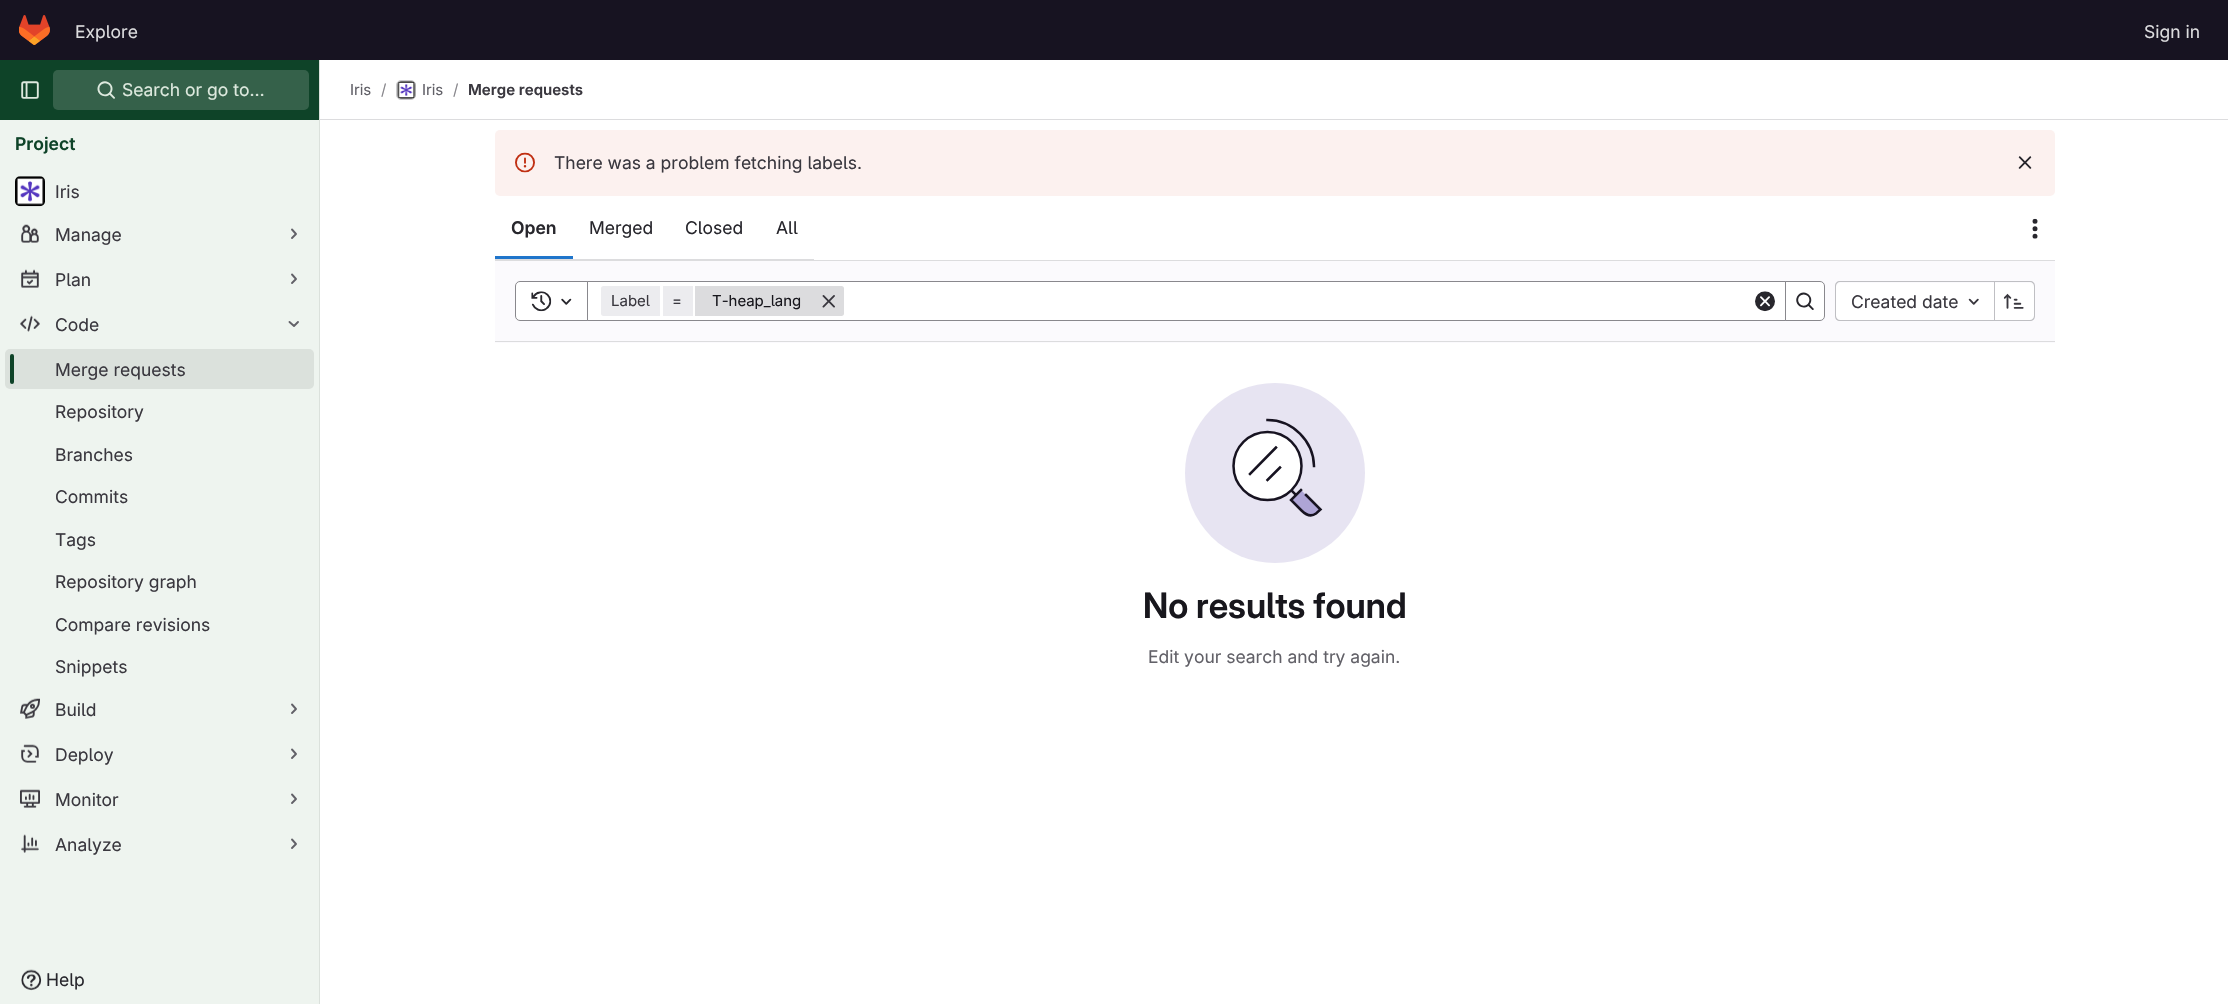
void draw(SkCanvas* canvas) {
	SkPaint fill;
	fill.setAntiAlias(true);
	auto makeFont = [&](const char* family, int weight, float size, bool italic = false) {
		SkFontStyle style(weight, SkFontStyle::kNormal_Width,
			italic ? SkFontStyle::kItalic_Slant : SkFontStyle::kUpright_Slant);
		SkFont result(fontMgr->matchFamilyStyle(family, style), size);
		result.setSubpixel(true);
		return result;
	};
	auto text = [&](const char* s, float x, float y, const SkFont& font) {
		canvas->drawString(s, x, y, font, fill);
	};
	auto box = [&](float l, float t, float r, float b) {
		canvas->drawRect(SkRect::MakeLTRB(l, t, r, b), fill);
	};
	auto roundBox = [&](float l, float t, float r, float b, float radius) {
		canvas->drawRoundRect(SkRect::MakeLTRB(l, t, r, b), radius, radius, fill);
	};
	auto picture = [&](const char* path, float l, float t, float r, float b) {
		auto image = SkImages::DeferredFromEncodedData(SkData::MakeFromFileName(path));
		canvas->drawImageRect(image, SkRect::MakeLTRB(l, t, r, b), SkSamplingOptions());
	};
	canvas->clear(0xFFFFFFFF);
	fill.setColor(0xFF171321);
	box(0, 0, 2228, 60);
	picture("image0.png", 19, 15, 50, 45);
	fill.setColor(0xFFEEF4EF);
	box(0, 120, 319, 1004);
	fill.setColor(0xFFDBE1DC);
	box(319, 60, 320, 1004);
	fill.setColor(0xFF0E4328);
	box(0, 60, 319, 120);
	picture("image1.png", 21, 81, 39, 99);
	fill.setColor(0xFF35614A);
	roundBox(53, 70, 309, 110, 5);
	picture("image2.png", 97, 81, 115, 99);
	picture("image3.png", 15, 176, 45, 207);
	fill.setStyle(SkPaint::kStroke_Style);
	fill.setStrokeWidth(1);
	fill.setColor(0x14050506);
	canvas->drawRoundRect(SkRect::MakeLTRB(15.5f, 176.5f, 44.5f, 205.5f), 4.5f, 4.5f, fill);
	picture("image4.png", 21, 224, 39, 243);
	fill.setStrokeWidth(1.9f);
	fill.setStrokeCap(SkPaint::kRound_Cap);
	fill.setStrokeJoin(SkPaint::kRound_Join);
	fill.setColor(0xFF626168);
	canvas->drawPath(SkPathBuilder().moveTo(292, 229.5f).lineTo(296, 234).lineTo(292, 238).detach(), fill);
	picture("image5.png", 21, 269, 39, 288);
	canvas->drawPath(SkPathBuilder().moveTo(292, 274.5f).lineTo(296, 279).lineTo(292, 283).detach(), fill);
	picture("image6.png", 20, 315, 40, 332);
	canvas->drawPath(SkPathBuilder().moveTo(298, 322).lineTo(294, 326).lineTo(289.5f, 322).detach(), fill);
	fill.setStyle(SkPaint::kFill_Style);
	fill.setColor(0xFFDBE1DC);
	roundBox(5, 349, 314, 389, 5);
	fill.setColor(0xFF0E4328);
	roundBox(10, 354, 14, 384, 2);
	picture("image7.png", 20, 698, 40, 719);
	fill.setStyle(SkPaint::kStroke_Style);
	fill.setColor(0xFF626168);
	canvas->drawPath(SkPathBuilder().moveTo(292, 704.5f).lineTo(296, 709).lineTo(292, 713).detach(), fill);
	picture("image8.png", 21, 744, 39, 763);
	canvas->drawPath(SkPathBuilder().moveTo(292, 749.5f).lineTo(296, 754).lineTo(292, 758).detach(), fill);
	picture("image9.png", 20, 789, 40, 808);
	canvas->drawPath(SkPathBuilder().moveTo(292, 794.5f).lineTo(296, 799).lineTo(292, 803).detach(), fill);
	picture("image10.png", 21, 834, 39, 853);
	canvas->drawPath(SkPathBuilder().moveTo(292, 839.5f).lineTo(296, 844).lineTo(292, 848).detach(), fill);
	picture("image11.png", 21, 969, 42, 991);
	fill.setStyle(SkPaint::kFill_Style);
	fill.setColor(0xFFDCDCDE);
	box(320, 119, 2228, 120);
	fill.setStyle(SkPaint::kStroke_Style);
	fill.setStrokeWidth(1);
	fill.setStrokeCap(SkPaint::kButt_Cap);
	fill.setStrokeJoin(SkPaint::kMiter_Join);
	canvas->drawRoundRect(SkRect::MakeLTRB(396.5f, 80.5f, 415.5f, 99.5f), 4.5f, 4.5f, fill);
	picture("image12.png", 397, 81, 416, 99);
	fill.setColor(0x14050506);
	canvas->drawRoundRect(SkRect::MakeLTRB(396.5f, 80.5f, 415.5f, 99.5f), 4.5f, 4.5f, fill);
	fill.setStyle(SkPaint::kFill_Style);
	fill.setColor(0xFFFCF1EF);
	roundBox(495, 130, 2055, 196, 5);
	picture("image13.png", 515, 152, 535, 173);
	picture("image14.png", 2018, 156, 2032, 169);
	fill.setColor(0xFFDCDCDE);
	box(495, 260, 2055, 261);
	box(495, 259, 814, 260);
	fill.setColor(0xFF1F75CB);
	box(495, 256, 573, 259);
	picture("image15.png", 2032, 218, 2038, 239);
	fill.setColor(0xFFFBFAFD);
	box(495, 261, 2055, 343);
	fill.setColor(0xFFDCDCDE);
	box(495, 341, 2055, 342);
	fill.setColor(0xFFFFFFFF);
	box(588, 282, 1785, 320);
	fill.setStyle(SkPaint::kStroke_Style);
	fill.setColor(0xFF89888D);
	canvas->drawRect(SkRect::MakeLTRB(586.5f, 281.5f, 1785.5f, 320.5f), fill);
	fill.setStyle(SkPaint::kFill_Style);
	fill.setColor(0xFFFFFFFF);
	canvas->drawPath(SkPathBuilder().moveTo(520, 281.5f).lineTo(587.5f, 281.5f).lineTo(587.5f, 320.5f).lineTo(520, 320.5f).cubicTo(517.5f, 320.5f, 515.5f, 318.5f, 515.5f, 316).lineTo(515.5f, 286).cubicTo(515.5f, 283.5f, 517.5f, 281.5f, 520, 281.5f).close().detach(), fill);
	fill.setStyle(SkPaint::kStroke_Style);
	fill.setColor(0xFF89888D);
	canvas->drawPath(SkPathBuilder().moveTo(520, 281.5f).lineTo(587.5f, 281.5f).lineTo(587.5f, 320.5f).lineTo(520, 320.5f).cubicTo(517.5f, 320.5f, 515.5f, 318.5f, 515.5f, 316).lineTo(515.5f, 286).cubicTo(515.5f, 283.5f, 517.5f, 281.5f, 520, 281.5f).close().detach(), fill);
	picture("image16.png", 531, 291, 552, 312);
	picture("image17.png", 561, 298, 572, 305);
	fill.setStyle(SkPaint::kFill_Style);
	fill.setColor(0xFFECECEF);
	canvas->drawPath(SkPathBuilder().moveTo(603.5f, 286).lineTo(660, 286).lineTo(660, 316).lineTo(603.5f, 316).cubicTo(602, 316, 601, 315, 601, 313.5f).lineTo(601, 288.5f).cubicTo(601, 287, 602, 286, 603.5f, 286).close().detach(), fill);
	box(663, 286, 693, 316);
	fill.setColor(0xFFDCDCDE);
	canvas->drawPath(SkPathBuilder().moveTo(695, 286).lineTo(841.5f, 286).cubicTo(843, 286, 844, 287, 844, 288.5f).lineTo(844, 313.5f).cubicTo(844, 315, 843, 316, 841.5f, 316).lineTo(695, 316).close().detach(), fill);
	picture("image18.png", 822, 295, 835, 308);
	picture("image19.png", 1755, 291, 1775, 312);
	fill.setColor(0xFFFFFFFF);
	canvas->drawPath(SkPathBuilder().moveTo(1785.5f, 281.5f).lineTo(1820, 281.5f).cubicTo(1822.5f, 281.5f, 1824.5f, 283.5f, 1824.5f, 286).lineTo(1824.5f, 316).cubicTo(1824.5f, 318.5f, 1822.5f, 320.5f, 1820, 320.5f).lineTo(1785.5f, 320.5f).close().detach(), fill);
	fill.setStyle(SkPaint::kStroke_Style);
	fill.setColor(0xFF89888D);
	canvas->drawPath(SkPathBuilder().moveTo(1785.5f, 281.5f).lineTo(1820, 281.5f).cubicTo(1822.5f, 281.5f, 1824.5f, 283.5f, 1824.5f, 286).lineTo(1824.5f, 316).cubicTo(1824.5f, 318.5f, 1822.5f, 320.5f, 1820, 320.5f).lineTo(1785.5f, 320.5f).close().detach(), fill);
	picture("image20.png", 1796, 292, 1814, 310);
	fill.setStyle(SkPaint::kFill_Style);
	fill.setColor(0xFFFFFFFF);
	canvas->drawPath(SkPathBuilder().moveTo(1840, 283).lineTo(1994, 283).lineTo(1994, 320).lineTo(1840, 320).cubicTo(1838, 320, 1836, 318, 1836, 316).lineTo(1836, 287).cubicTo(1836, 285, 1838, 283, 1840, 283).close().detach(), fill);
	fill.setColor(0xFFBFBFC3);
	canvas->drawPath(SkPathBuilder(SkPathFillType::kEvenOdd).moveTo(1840, 281).lineTo(1994, 281).lineTo(1994, 321).lineTo(1840, 321).cubicTo(1837, 321, 1835, 319, 1835, 316).lineTo(1835, 286).cubicTo(1835, 283, 1837, 281, 1840, 281).close().moveTo(1840, 282).lineTo(1994, 282).lineTo(1994, 320).lineTo(1840, 320).cubicTo(1838, 320, 1836, 318, 1836, 316).lineTo(1836, 286).cubicTo(1836, 284, 1838, 282, 1840, 282).close().detach(), fill);
	picture("image21.png", 1968, 298, 1979, 305);
	fill.setColor(0xFFFFFFFF);
	canvas->drawPath(SkPathBuilder().moveTo(1995, 283).lineTo(2030, 283).cubicTo(2032, 283, 2034, 285, 2034, 287).lineTo(2034, 316).cubicTo(2034, 318, 2032, 320, 2030, 320).lineTo(1995, 320).close().detach(), fill);
	fill.setColor(0xFFBFBFC3);
	canvas->drawPath(SkPathBuilder(SkPathFillType::kEvenOdd).moveTo(1995, 281).lineTo(2030, 281).cubicTo(2033, 281, 2035, 283, 2035, 286).lineTo(2035, 316).cubicTo(2035, 319, 2033, 321, 2030, 321).lineTo(1995, 321).close().moveTo(1995, 282).lineTo(2030, 282).cubicTo(2032, 282, 2034, 284, 2034, 286).lineTo(2034, 316).cubicTo(2034, 318, 2032, 320, 2030, 320).lineTo(1995, 320).close().detach(), fill);
	box(1994, 281, 1995, 321);
	picture("image22.png", 2003, 293, 2024, 309);
	fill.setColor(0xFFE7E4F2);
	canvas->drawCircle(1275, 473, 90, fill);
	fill.setColor(0xFFAEA5D6);
	canvas->drawPath(SkPathBuilder().moveTo(1301, 490).lineTo(1291, 500).lineTo(1301.5f, 510.5f).cubicTo(1305.5f, 514.5f, 1310.5f, 517.5f, 1316, 513.5f).lineTo(1320.5f, 509.5f).close().detach(), fill);
	fill.setStyle(SkPaint::kStroke_Style);
	fill.setStrokeWidth(2.5f);
	fill.setStrokeCap(SkPaint::kSquare_Cap);
	fill.setColor(0xFF171321);
	canvas->drawPath(SkPathBuilder().moveTo(1301, 490).lineTo(1291, 500).lineTo(1301.5f, 510.5f).cubicTo(1305.5f, 514.5f, 1310.5f, 517.5f, 1316, 513.5f).lineTo(1320.5f, 509.5f).lineTo(1306, 495).moveTo(1291, 490).lineTo(1295, 494).detach(), fill);
	fill.setStyle(SkPaint::kFill_Style);
	fill.setColor(0xFFFFFFFF);
	canvas->drawCircle(1267.5f, 466, 34, fill);
	fill.setStyle(SkPaint::kStroke_Style);
	fill.setStrokeCap(SkPaint::kButt_Cap);
	fill.setColor(0xFF171321);
	canvas->drawCircle(1267.5f, 466, 34, fill);
	fill.setStrokeCap(SkPaint::kSquare_Cap);
	canvas->drawPath(SkPathBuilder().moveTo(1267.5f, 480).lineTo(1280, 467.5f).moveTo(1250, 474).lineTo(1276, 447.5f).moveTo(1314, 466).cubicTo(1313.5f, 441, 1292.5f, 420, 1267.5f, 420).detach(), fill);
	auto font1 = makeFont("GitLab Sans", 400, 17.5f);
	fill.setStyle(SkPaint::kFill_Style);
	fill.setColor(0xFFDCDCDE);
	text("Explore", 75, 38, font1);
	text("Sign in", 2144, 38, font1);
	fill.setColor(0xFFDDE9DE);
	text("Search or go to…", 122, 96, font1);
	auto font2 = makeFont("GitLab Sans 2", 600, 17.5f);
	fill.setColor(0xFF0E4328);
	text("Project", 15, 150, font2);
	fill.setColor(0xFF3A383F);
	text("Iris", 55, 198, font1);
	text("Manage", 55, 241, font1);
	text("Plan", 55, 286, font1);
	text("Code", 55, 331, font1);
	text("Merge requests", 55, 376, font1);
	text("Repository", 55, 418, font1);
	text("Branches", 55, 461, font1);
	text("Commits", 55, 503, font1);
	text("Tags", 55, 546, font1);
	text("Repository graph", 55, 588, font1);
	text("Compare revisions", 55, 631, font1);
	text("Snippets", 55, 673, font1);
	text("Build", 55, 716, font1);
	text("Deploy", 55, 761, font1);
	text("Monitor", 55, 806, font1);
	text("Analyze", 55, 851, font1);
	fill.setColor(0xFF28272D);
	text("Help", 46, 986, font1);
	auto font3 = makeFont("GitLab Sans", 400, 15);
	fill.setColor(0xFF626168);
	text("Iris", 350, 95, font3);
	fill.setColor(0xFF89888D);
	text("/", 381, 95, font3);
	fill.setColor(0xFF626168);
	text("Iris", 422, 95, font3);
	fill.setColor(0xFF89888D);
	text("/", 453, 95, font3);
	auto font4 = makeFont("GitLab Sans 2", 600, 15);
	fill.setColor(0xFF3A383F);
	text("Merge requests", 468, 95, font4);
	text("There was a problem fetching labels.", 554, 169, font1);
	fill.setColor(0xFF28272D);
	text("Open", 511, 234, font2);
	text("Merged", 589, 234, font1);
	text("Closed", 685, 234, font1);
	text("All", 776, 234, font1);
	fill.setColor(0xFF3A383F);
	text("Label", 611, 306, font3);
	text("=", 672, 306, font3);
	fill.setColor(0xFF18171D);
	text("T-heap_lang", 712, 306, font3);
	fill.setColor(0xFF3A383F);
	text("Created date", 1851, 308, font1);
	auto font5 = makeFont("GitLab Sans", 600, 35);
	fill.setColor(0xFF18171D);
	text("No results found", 1143, 618, font5);
	fill.setColor(0xFF626168);
	text("Edit your search and try again.", 1148, 663, font1);
}
